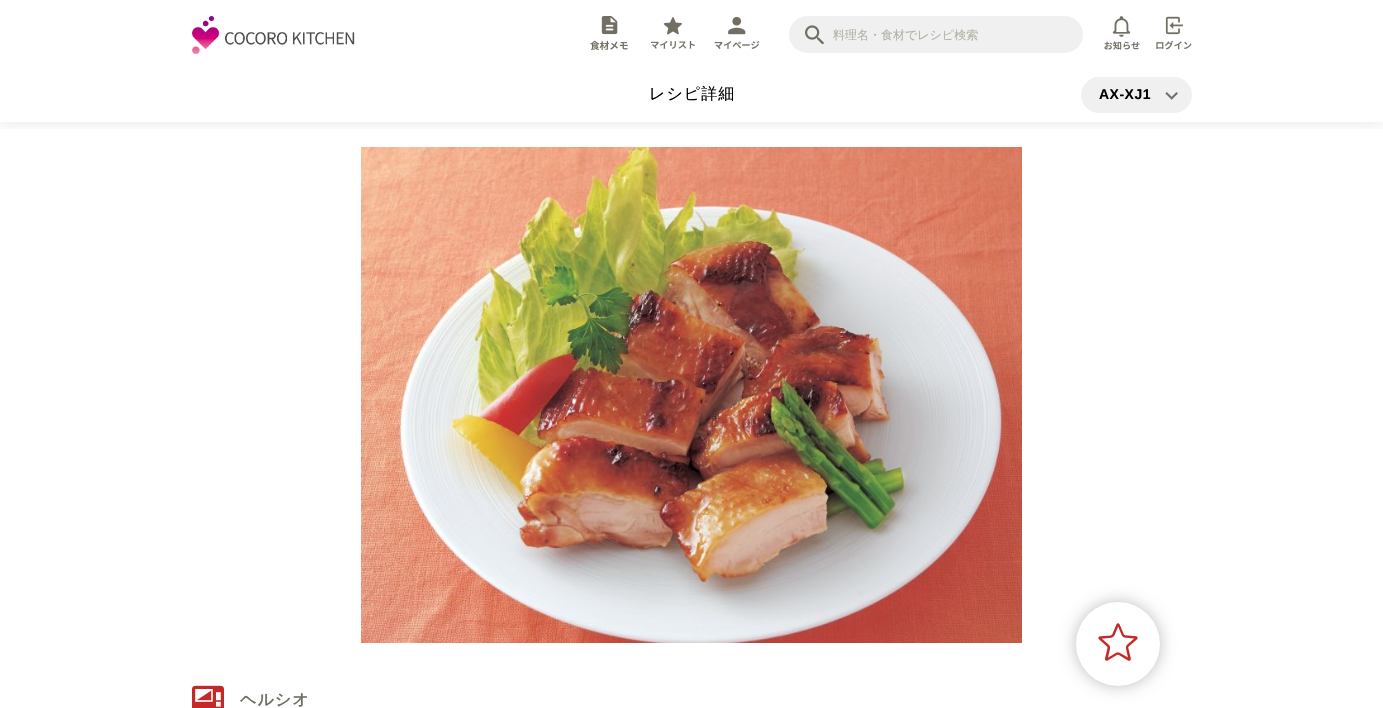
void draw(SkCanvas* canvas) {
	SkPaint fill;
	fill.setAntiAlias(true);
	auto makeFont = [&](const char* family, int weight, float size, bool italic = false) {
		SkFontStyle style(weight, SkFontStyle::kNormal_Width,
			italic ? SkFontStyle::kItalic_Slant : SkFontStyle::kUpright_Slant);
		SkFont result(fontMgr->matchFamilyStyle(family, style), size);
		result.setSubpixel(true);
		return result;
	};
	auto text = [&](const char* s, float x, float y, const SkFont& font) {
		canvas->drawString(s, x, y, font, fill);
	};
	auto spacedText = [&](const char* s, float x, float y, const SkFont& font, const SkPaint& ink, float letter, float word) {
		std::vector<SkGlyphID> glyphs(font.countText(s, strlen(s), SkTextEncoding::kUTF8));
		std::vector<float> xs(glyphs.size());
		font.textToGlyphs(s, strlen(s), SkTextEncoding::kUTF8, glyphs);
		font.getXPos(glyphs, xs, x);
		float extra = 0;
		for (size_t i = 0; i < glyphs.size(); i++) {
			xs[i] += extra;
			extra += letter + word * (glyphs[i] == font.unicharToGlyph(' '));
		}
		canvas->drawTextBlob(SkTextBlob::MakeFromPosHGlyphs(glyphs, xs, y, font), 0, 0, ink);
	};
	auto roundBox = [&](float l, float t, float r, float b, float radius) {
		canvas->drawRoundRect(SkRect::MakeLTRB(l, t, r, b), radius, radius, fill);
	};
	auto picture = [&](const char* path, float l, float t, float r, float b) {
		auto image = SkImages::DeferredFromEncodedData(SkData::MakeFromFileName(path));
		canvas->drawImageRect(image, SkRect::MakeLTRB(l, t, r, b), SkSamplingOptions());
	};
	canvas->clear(0xFFFFFFFF);
	canvas->save();
	canvas->clipRect(SkRect::MakeLTRB(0, 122, 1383, 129));
	fill.setColor(0x1A000000);
	fill.setMaskFilter(SkMaskFilter::MakeBlur(kNormal_SkBlurStyle, 8));
	canvas->drawRect(SkRect::MakeLTRB(0, 0, 1383, 122), fill);
	fill.setMaskFilter(nullptr);
	canvas->restore();
	picture("image0.png", 192, 16, 355, 54);
	picture("image1.png", 590, 16, 628, 50);
	picture("image2.png", 651, 17, 695, 49);
	picture("image3.png", 714, 16, 760, 49);
	fill.setColor(0xFFF0F0F0);
	roundBox(789, 16, 1083, 53, 18.5f);
	picture("image4.png", 805, 25, 824, 44);
	picture("image5.png", 1104, 16, 1140, 50);
	picture("image6.png", 1156, 16, 1192, 50);
	canvas->drawRoundRect(SkRect::MakeLTRB(1081.5f, 77.5f, 1191.5f, 112.5f), 17.5f, 17.5f, fill);
	fill.setStyle(SkPaint::kStroke_Style);
	fill.setStrokeWidth(1);
	canvas->drawRoundRect(SkRect::MakeLTRB(1081.5f, 77.5f, 1191.5f, 112.5f), 17.5f, 17.5f, fill);
	picture("image7.png", 1165, 92, 1178, 100);
	picture("image8.png", 361, 147, 1022, 643);
	picture("image9.png", 192, 685, 224, 708);
	fill.setStyle(SkPaint::kFill_Style);
	fill.setColor(0x42000000);
	fill.setMaskFilter(SkMaskFilter::MakeBlur(kNormal_SkBlurStyle, 8));
	canvas->drawRoundRect(SkRect::MakeLTRB(1076, 602, 1160, 686), 42, 42, fill);
	fill.setMaskFilter(nullptr);
	fill.setColor(0xFFFFFFFF);
	canvas->drawCircle(1118, 644, 42, fill);
	picture("image10.png", 1098, 623, 1138, 661);
	auto font1 = makeFont("WenQuanYi Zen Hei", 500, 12);
	fill.setColor(0xFFB3B2A4);
	text("料理名・⾷材でレシピ検索", 833, 39, font1);
	auto font2 = makeFont("WenQuanYi Zen Hei", 500, 16);
	fill.setColor(0xFF000000);
	spacedText("レシピ詳細", 649, 99, font2, fill, 1, 0);
	auto font3 = makeFont("Liberation Sans", 700, 14);
	spacedText("AX-XJ1", 1099, 99, font3, fill, 0.5f, 0);
	auto font4 = makeFont("WenQuanYi Zen Hei", 700, 16);
	fill.setColor(0xFF716F63);
	spacedText("ヘルシオ", 240, 705, font4, fill, 1, 0);
}
